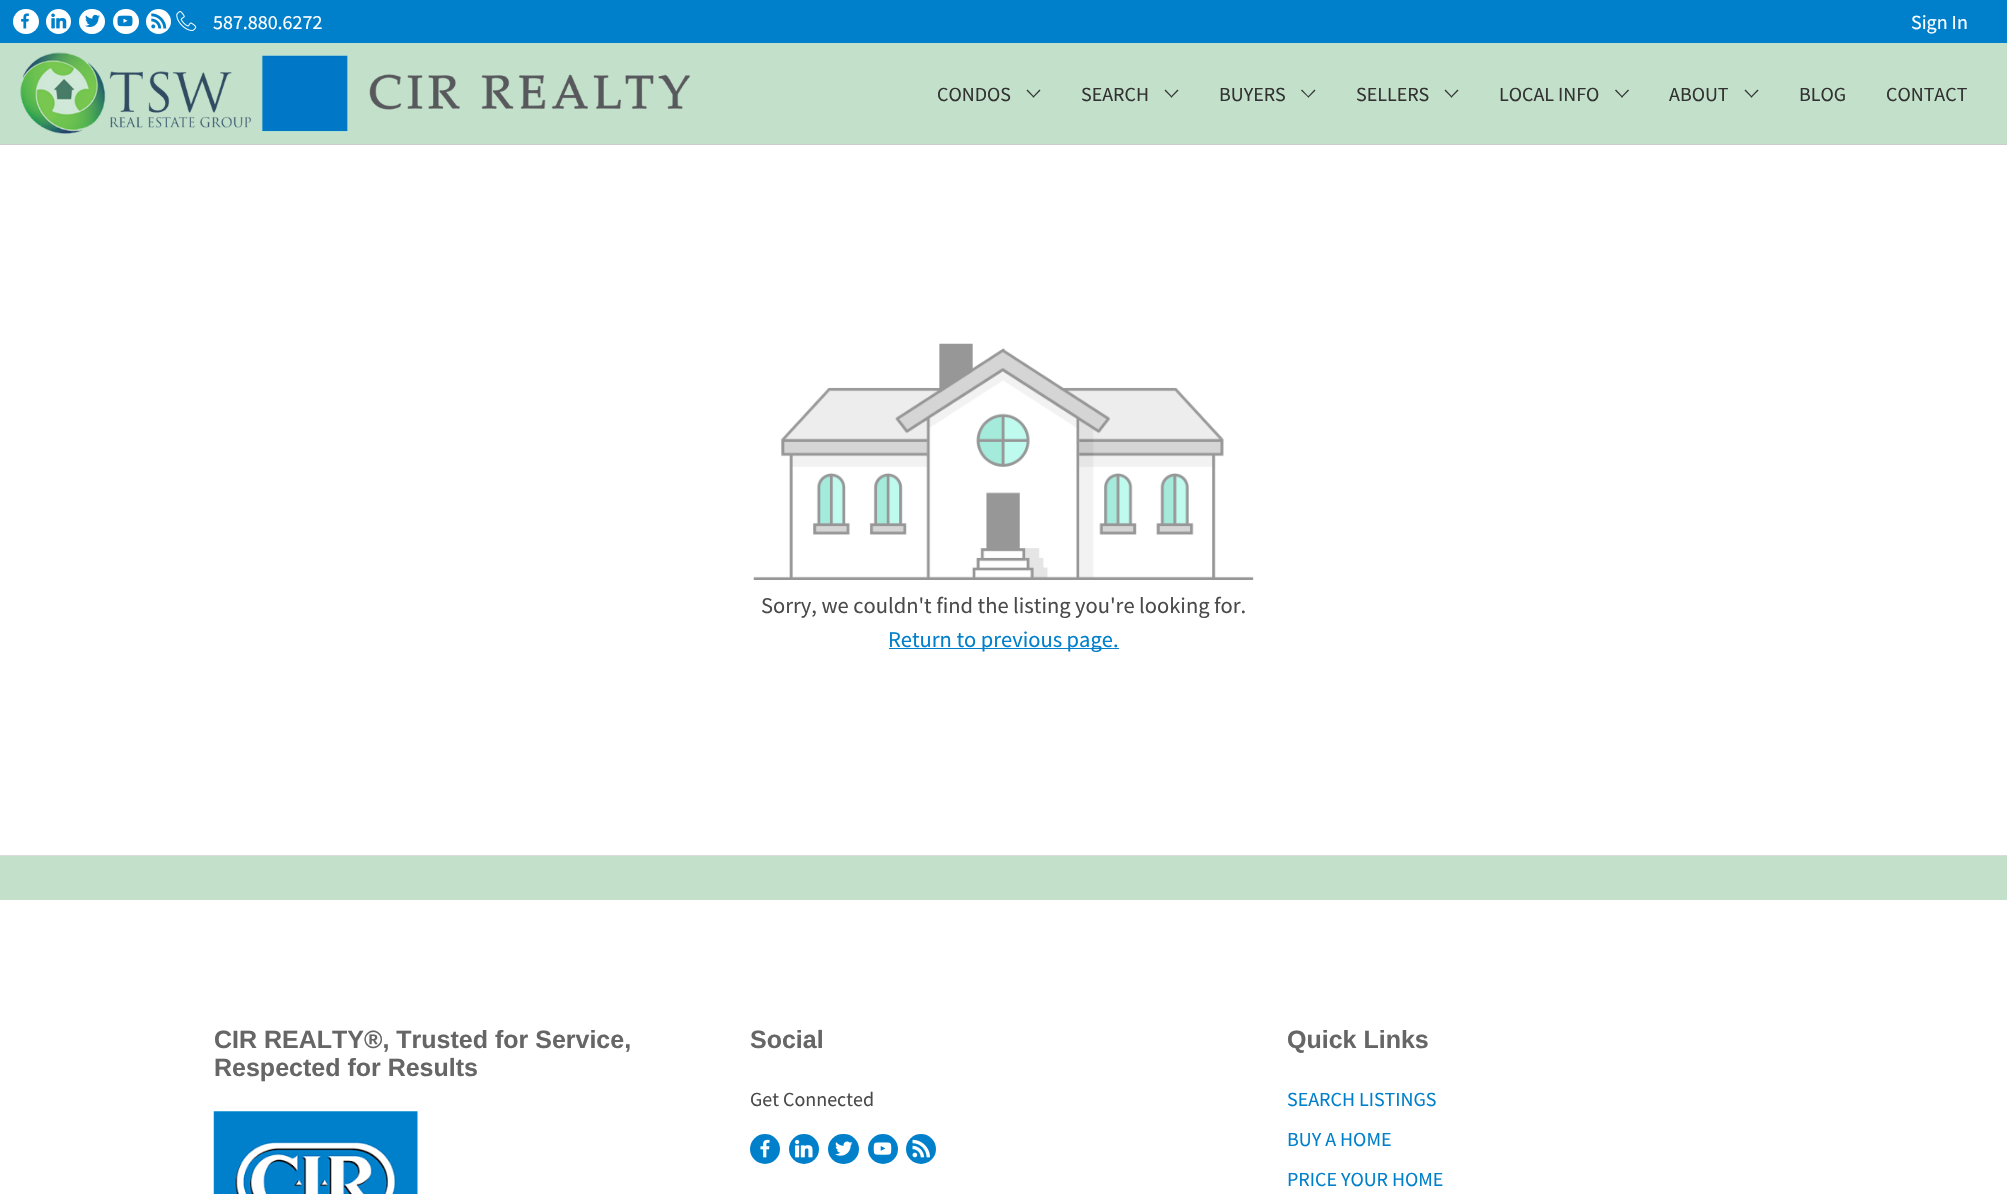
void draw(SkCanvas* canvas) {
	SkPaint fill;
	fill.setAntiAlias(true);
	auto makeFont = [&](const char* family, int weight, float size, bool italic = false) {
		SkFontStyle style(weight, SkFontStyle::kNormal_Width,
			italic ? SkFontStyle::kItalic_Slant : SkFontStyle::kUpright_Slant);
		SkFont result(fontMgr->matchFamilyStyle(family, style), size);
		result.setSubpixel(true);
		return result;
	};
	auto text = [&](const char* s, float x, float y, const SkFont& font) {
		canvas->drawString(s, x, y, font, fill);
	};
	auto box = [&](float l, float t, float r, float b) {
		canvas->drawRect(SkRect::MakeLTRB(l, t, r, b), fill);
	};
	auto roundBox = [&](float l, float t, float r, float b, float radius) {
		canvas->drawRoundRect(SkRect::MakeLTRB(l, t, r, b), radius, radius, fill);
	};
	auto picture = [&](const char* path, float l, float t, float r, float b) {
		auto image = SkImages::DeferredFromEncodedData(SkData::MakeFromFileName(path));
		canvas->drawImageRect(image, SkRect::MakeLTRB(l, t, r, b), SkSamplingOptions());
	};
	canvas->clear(0xFFFFFFFF);
	fill.setColor(0xFFCCCCCC);
	canvas->drawPath(SkPathBuilder().moveTo(0, 144).lineTo(0, 145).lineTo(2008, 145).lineTo(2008, 1).lineTo(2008, 144).close().detach(), fill);
	fill.setColor(0xFFC3E0CA);
	box(0, 43, 2007, 144);
	fill.setColor(0xFF0080CB);
	box(0, 0, 2007, 43);
	fill.setColor(0xFFFFFFFF);
	roundBox(13, 9, 39, 34, 12.5f);
	picture("image0.png", 21, 13, 29, 29);
	canvas->drawCircle(58.5f, 21.5f, 12.5f, fill);
	picture("image1.png", 51, 13, 67, 29);
	roundBox(79, 9, 105, 34, 12.5f);
	picture("image2.png", 85, 14, 100, 27);
	roundBox(113, 9, 139, 34, 12.5f);
	picture("image3.png", 117, 15, 133, 27);
	canvas->drawCircle(158.5f, 21.5f, 12.5f, fill);
	picture("image4.png", 151, 13, 167, 29);
	picture("image5.png", 176, 11, 197, 31);
	picture("image6.png", 20, 52, 691, 134);
	fill.setColor(0xFF323232);
	canvas->drawPath(SkPathBuilder().moveTo(1032.5f, 97).lineTo(1039.5f, 89.5f).lineTo(1040.5f, 90.5f).lineTo(1033.5f, 97.5f).close().detach(), fill);
	canvas->drawPath(SkPathBuilder().moveTo(1026.5f, 90.5f).lineTo(1027.5f, 89.5f).lineTo(1034.5f, 97).lineTo(1033.5f, 97.5f).close().detach(), fill);
	canvas->drawPath(SkPathBuilder().moveTo(1170.5f, 97).lineTo(1177.5f, 89.5f).lineTo(1178.5f, 90.5f).lineTo(1171.5f, 97.5f).close().detach(), fill);
	canvas->drawPath(SkPathBuilder().moveTo(1164.5f, 90.5f).lineTo(1165.5f, 89.5f).lineTo(1172.5f, 97).lineTo(1171.5f, 97.5f).close().detach(), fill);
	canvas->drawPath(SkPathBuilder().moveTo(1307.5f, 97).lineTo(1314.5f, 89.5f).lineTo(1315.5f, 90.5f).lineTo(1308.5f, 97.5f).close().detach(), fill);
	canvas->drawPath(SkPathBuilder().moveTo(1301, 90.5f).lineTo(1302, 89.5f).lineTo(1309, 97).lineTo(1308.5f, 97.5f).close().detach(), fill);
	canvas->drawPath(SkPathBuilder().moveTo(1450.5f, 97).lineTo(1457.5f, 89.5f).lineTo(1458.5f, 90.5f).lineTo(1451.5f, 97.5f).close().detach(), fill);
	canvas->drawPath(SkPathBuilder().moveTo(1444.5f, 90.5f).lineTo(1445.5f, 89.5f).lineTo(1452.5f, 97).lineTo(1451.5f, 97.5f).close().detach(), fill);
	canvas->drawPath(SkPathBuilder().moveTo(1621, 97).lineTo(1628, 89.5f).lineTo(1629, 90.5f).lineTo(1622, 97.5f).close().detach(), fill);
	canvas->drawPath(SkPathBuilder().moveTo(1615, 90.5f).lineTo(1616, 89.5f).lineTo(1623, 97).lineTo(1622, 97.5f).close().detach(), fill);
	canvas->drawPath(SkPathBuilder().moveTo(1750.5f, 97).lineTo(1757.5f, 89.5f).lineTo(1758.5f, 90.5f).lineTo(1751.5f, 97.5f).close().detach(), fill);
	canvas->drawPath(SkPathBuilder().moveTo(1744.5f, 90.5f).lineTo(1745.5f, 89.5f).lineTo(1752.5f, 97).lineTo(1751.5f, 97.5f).close().detach(), fill);
	picture("image7.png", 753, 343, 1254, 580);
	fill.setColor(0xFF0080CB);
	box(889, 648, 1119, 649);
	fill.setColor(0xFFDBDBDB);
	box(0, 855, 2007, 856);
	fill.setColor(0xFFC3E0CA);
	box(0, 856, 2007, 900);
	picture("image8.png", 213, 1111, 418, 1194);
	fill.setColor(0xFF0080CB);
	canvas->drawCircle(765, 1149, 15, fill);
	picture("image9.png", 760, 1139, 770, 1158);
	canvas->drawCircle(804, 1149, 15, fill);
	picture("image10.png", 795, 1139, 813, 1158);
	roundBox(828, 1134, 859, 1164, 15);
	picture("image11.png", 835, 1141, 853, 1156);
	canvas->drawCircle(883, 1149, 15, fill);
	picture("image12.png", 873, 1142, 892, 1155);
	canvas->drawCircle(921, 1149, 15, fill);
	picture("image13.png", 912, 1139, 930, 1158);
	auto font1 = makeFont("Source Sans Pro", 400, 20);
	fill.setColor(0xFFFFFFFF);
	text("587.880.6272", 213, 29, font1);
	text("Sign In", 1911, 29, font1);
	fill.setColor(0xFF323232);
	text("CONDOS", 937, 101, font1);
	text("SEARCH", 1081, 101, font1);
	text("BUYERS", 1219, 101, font1);
	text("SELLERS", 1356, 101, font1);
	text("LOCAL INFO", 1499, 101, font1);
	text("ABOUT", 1669, 101, font1);
	text("BLOG", 1799, 101, font1);
	text("CONTACT", 1886, 101, font1);
	auto font2 = makeFont("Source Sans Pro", 400, 22.5f);
	fill.setColor(0xFF4A4A4A);
	text("Sorry, we couldn't find the listing you're looking for.", 761, 613, font2);
	fill.setColor(0xFF0080CB);
	text("Return to previous page.", 888, 647, font2);
	auto font3 = makeFont("Arimo", 700, 25);
	fill.setColor(0xFF666666);
	text("CIR REALTY®, Trusted for Service,", 214, 1048, font3);
	text("Respected for Results", 214, 1076, font3);
	text("Social", 750, 1048, font3);
	fill.setColor(0xFF4A4A4A);
	text("Get Connected", 750, 1106, font1);
	fill.setColor(0xFF666666);
	text("Quick Links", 1287, 1048, font3);
	fill.setColor(0xFF0080CB);
	text("SEARCH LISTINGS", 1287, 1106, font1);
	text("BUY A HOME", 1287, 1146, font1);
	text("PRICE YOUR HOME", 1287, 1186, font1);
}
